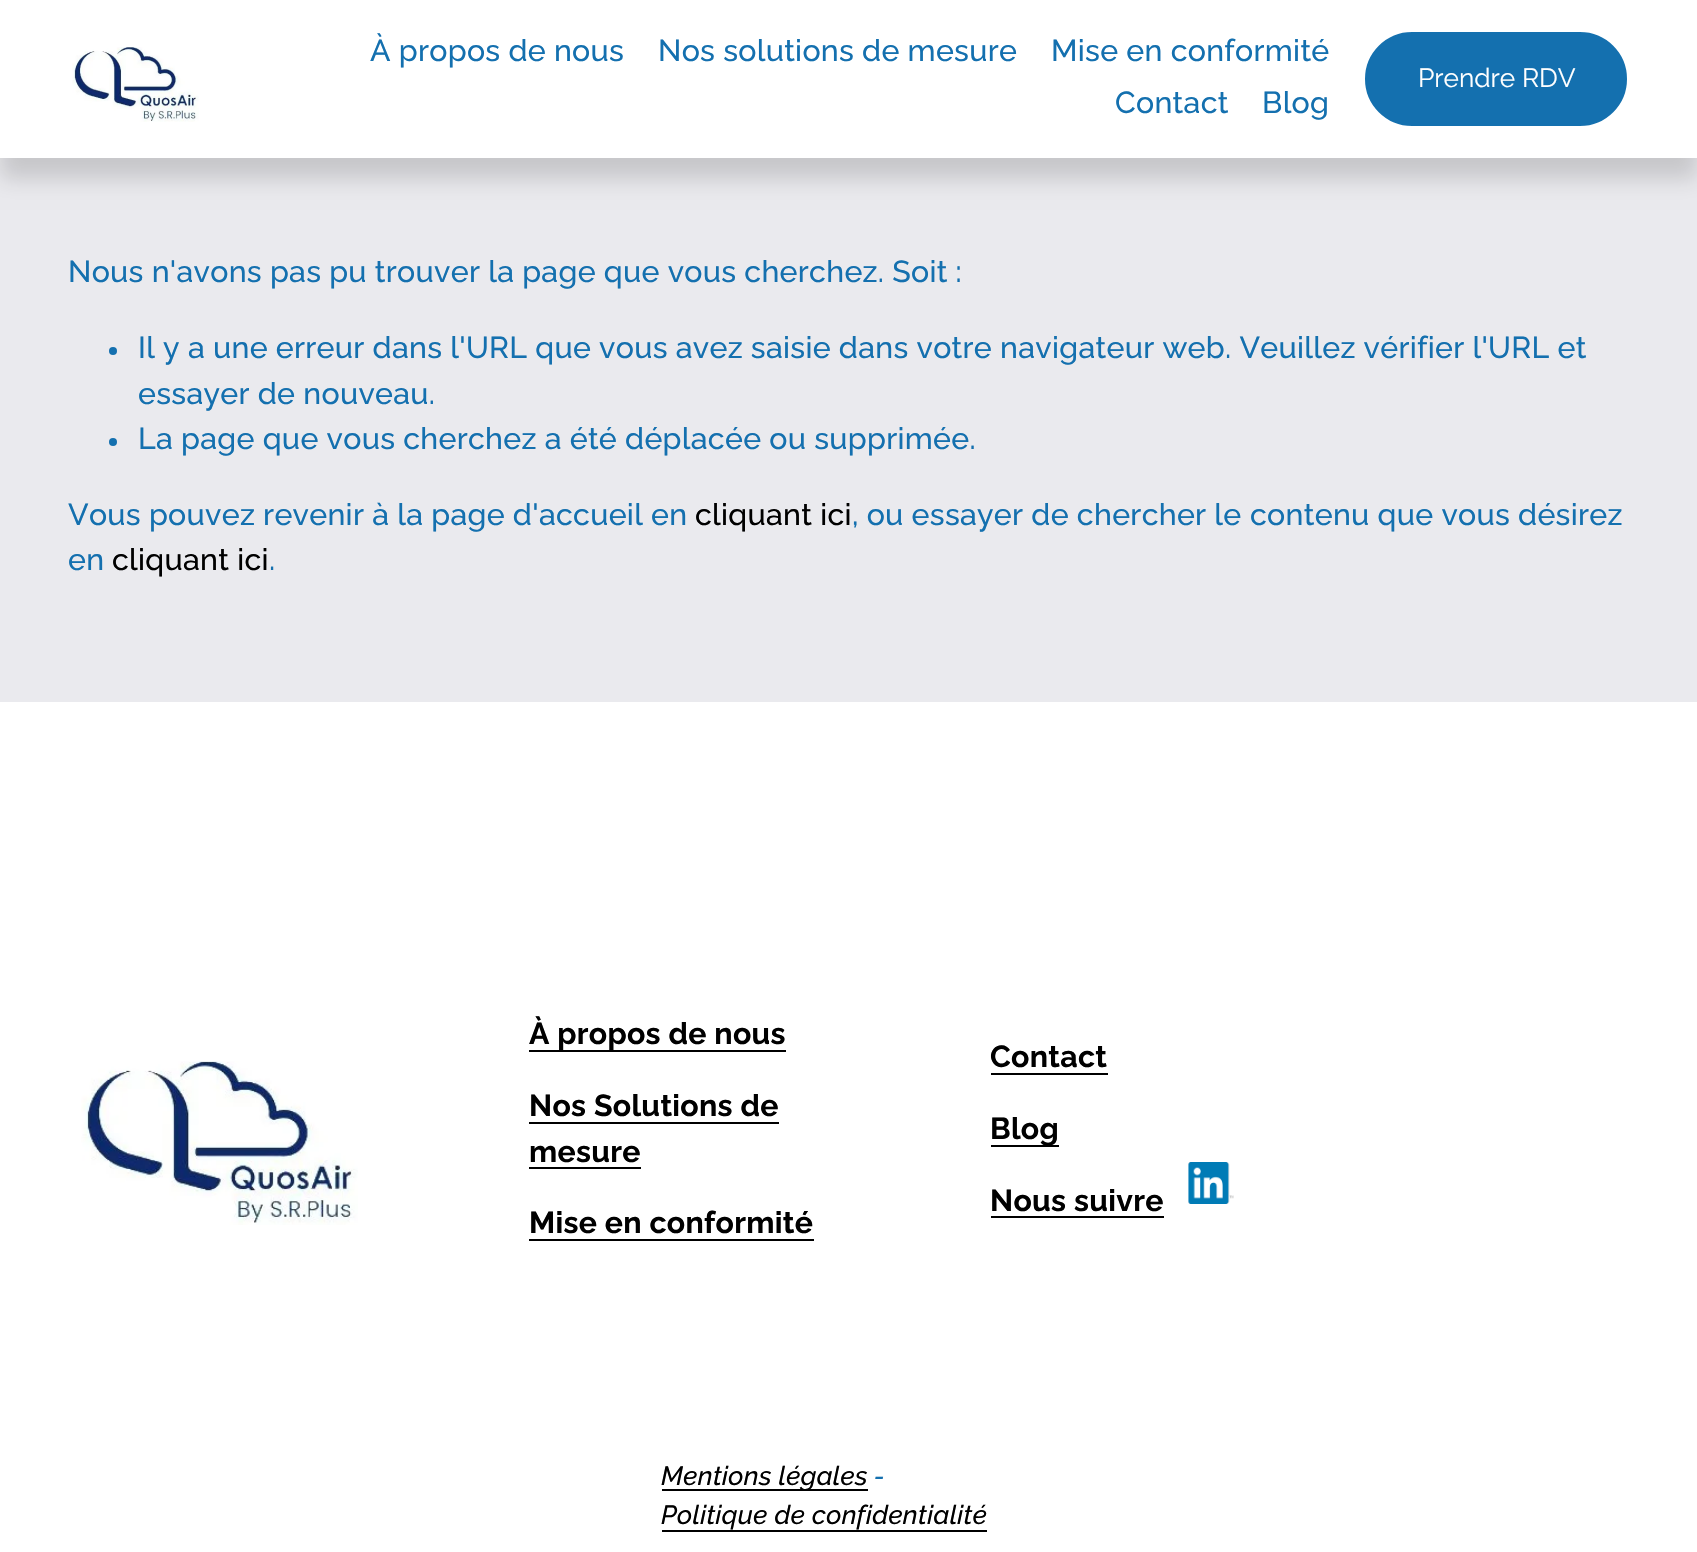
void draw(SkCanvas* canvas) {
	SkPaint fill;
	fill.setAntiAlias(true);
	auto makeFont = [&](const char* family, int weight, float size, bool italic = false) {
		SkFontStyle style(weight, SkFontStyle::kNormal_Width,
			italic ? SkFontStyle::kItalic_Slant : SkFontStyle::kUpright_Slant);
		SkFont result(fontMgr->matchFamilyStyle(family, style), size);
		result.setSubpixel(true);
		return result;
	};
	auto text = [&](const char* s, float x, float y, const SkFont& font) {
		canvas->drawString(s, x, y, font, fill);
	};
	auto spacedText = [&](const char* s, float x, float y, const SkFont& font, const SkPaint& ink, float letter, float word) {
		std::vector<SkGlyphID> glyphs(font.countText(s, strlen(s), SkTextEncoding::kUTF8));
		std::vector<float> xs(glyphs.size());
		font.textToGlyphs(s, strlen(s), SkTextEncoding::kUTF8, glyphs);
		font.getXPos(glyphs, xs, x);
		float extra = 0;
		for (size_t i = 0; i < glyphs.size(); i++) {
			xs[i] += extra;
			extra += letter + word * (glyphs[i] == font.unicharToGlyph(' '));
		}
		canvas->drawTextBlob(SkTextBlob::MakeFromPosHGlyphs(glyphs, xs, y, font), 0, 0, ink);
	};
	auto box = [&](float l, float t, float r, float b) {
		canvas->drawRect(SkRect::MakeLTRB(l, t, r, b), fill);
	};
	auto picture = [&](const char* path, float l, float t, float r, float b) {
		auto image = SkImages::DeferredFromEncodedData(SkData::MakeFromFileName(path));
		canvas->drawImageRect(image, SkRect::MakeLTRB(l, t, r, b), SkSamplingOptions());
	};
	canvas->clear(0xFFEAEAEE);
	fill.setColor(0xFFFFFFFF);
	box(0, 0, 1697, 158);
	canvas->save();
	canvas->clipPath(SkPathBuilder(SkPathFillType::kEvenOdd).moveTo(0, 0).lineTo(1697, 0).lineTo(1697, 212).lineTo(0, 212).close().moveTo(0, 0).lineTo(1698, 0).lineTo(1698, 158).lineTo(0, 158).close().detach(), true);
	fill.setColor(0x26000000);
	fill.setMaskFilter(SkMaskFilter::MakeBlur(kNormal_SkBlurStyle, 10.5f));
	canvas->drawRect(SkRect::MakeLTRB(0, 21, 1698, 179), fill);
	fill.setMaskFilter(nullptr);
	canvas->restore();
	picture("image0.png", 72, 47, 199, 122);
	fill.setColor(0xFF1470AF);
	canvas->drawRoundRect(SkRect::MakeLTRB(1364, 31, 1628, 127), 48, 48, fill);
	fill.setStyle(SkPaint::kStroke_Style);
	fill.setStrokeWidth(2);
	fill.setColor(0xFFFFFFFF);
	canvas->drawRoundRect(SkRect::MakeLTRB(1364, 31, 1628, 127), 48, 48, fill);
	fill.setStyle(SkPaint::kFill_Style);
	fill.setColor(0xFF1470AF);
	canvas->drawCircle(113, 351, 4, fill);
	canvas->drawCircle(113, 442, 4, fill);
	fill.setColor(0xFFFFFFFF);
	box(0, 702, 1697, 1552);
	picture("image1.png", 81, 1061, 358, 1225);
	fill.setColor(0xFF000000);
	box(529, 1050, 786, 1052);
	box(529, 1122, 779, 1124);
	box(529, 1167, 641, 1169);
	box(529, 1239, 814, 1241);
	box(991, 1073, 1108, 1075);
	box(991, 1145, 1059, 1147);
	box(991, 1216, 1164, 1218);
	picture("image2.png", 1188, 1162, 1234, 1204);
	box(662, 1489, 868, 1491);
	box(662, 1530, 987, 1532);
	auto font1 = makeFont("Raleway", 500, 30.3f);
	fill.setColor(0xFF1470AF);
	spacedText("À propos de nous", 370, 61, font1, fill, 0.3f, 0);
	spacedText("Nos solutions de mesure", 658, 61, font1, fill, 0.3f, 0);
	spacedText("Mise en conformité", 1051, 61, font1, fill, 0.3f, 0);
	spacedText("Contact", 1115, 113, font1, fill, 0.3f, 0);
	spacedText("Blog", 1262, 113, font1, fill, 0.3f, 0);
	auto font2 = makeFont("Raleway", 400, 26.25f);
	fill.setColor(0xFFFFFFFF);
	text("Prendre RDV", 1418, 87, font2);
	fill.setColor(0xFF1470AF);
	spacedText("Nous n'avons pas pu trouver la page que vous cherchez. Soit :", 68, 282, font1, fill, 0.3f, 0);
	spacedText("Il y a une erreur dans l'URL que vous avez saisie dans votre navigateur web. Veuillez vérifier l'URL et", 138, 358, font1, fill, 0.3f, 0);
	spacedText("essayer de nouveau.", 138, 404, font1, fill, 0.3f, 0);
	spacedText("La page que vous cherchez a été déplacée ou supprimée.", 138, 449, font1, fill, 0.3f, 0);
	spacedText("Vous pouvez revenir à la page d'accueil en", 68, 525, font1, fill, 0.3f, 0);
	fill.setColor(0xFF000000);
	spacedText("cliquant ici", 695, 525, font1, fill, 0.3f, 0);
	fill.setColor(0xFF1470AF);
	spacedText(", ou essayer de chercher le", 852, 525, font1, fill, 0.3f, 0);
	spacedText("contenu que vous désirez", 1250, 525, font1, fill, 0.3f, 0);
	spacedText("en", 68, 570, font1, fill, 0.3f, 0);
	fill.setColor(0xFF000000);
	spacedText("cliquant ici", 112, 570, font1, fill, 0.3f, 0);
	fill.setColor(0xFF1470AF);
	spacedText(".", 269, 570, font1, fill, 0.3f, 0);
	auto font3 = makeFont("Raleway", 700, 30.3f);
	fill.setColor(0xFF000000);
	spacedText("À propos de nous", 529, 1044, font3, fill, 0.3f, 0);
	spacedText("Nos Solutions de", 529, 1116, font3, fill, 0.3f, 0);
	spacedText("mesure", 529, 1162, font3, fill, 0.3f, 0);
	spacedText("Mise en conformité", 529, 1233, font3, fill, 0.3f, 0);
	spacedText("Contact", 990, 1067, font3, fill, 0.3f, 0);
	spacedText("Blog", 990, 1139, font3, fill, 0.3f, 0);
	spacedText("Nous suivre", 990, 1211, font3, fill, 0.3f, 0);
	auto font4 = makeFont("Raleway", 500, 26.25f, true);
	spacedText("Mentions légales", 661, 1485, font4, fill, 0.3f, 0);
	fill.setColor(0xFF1470AF);
	spacedText("-", 874, 1485, font4, fill, 0.3f, 0);
	fill.setColor(0xFF000000);
	spacedText("Politique de confidentialité", 661, 1524, font4, fill, 0.3f, 0);
}
